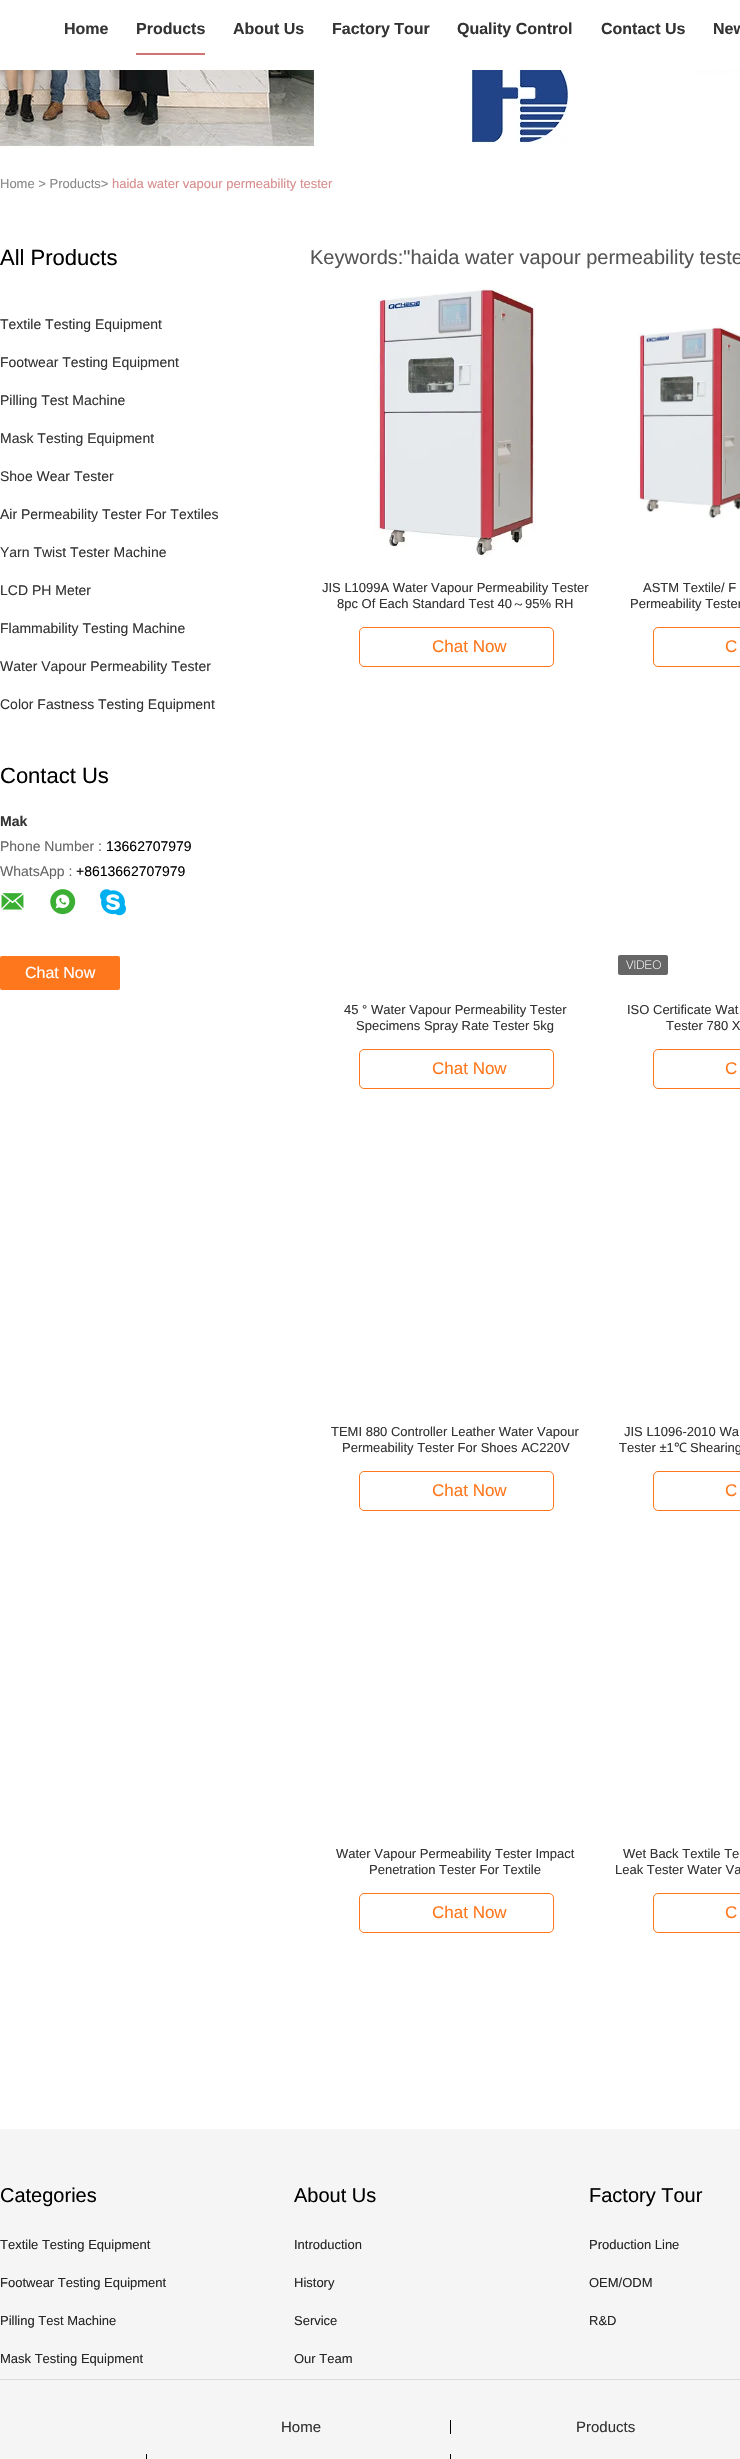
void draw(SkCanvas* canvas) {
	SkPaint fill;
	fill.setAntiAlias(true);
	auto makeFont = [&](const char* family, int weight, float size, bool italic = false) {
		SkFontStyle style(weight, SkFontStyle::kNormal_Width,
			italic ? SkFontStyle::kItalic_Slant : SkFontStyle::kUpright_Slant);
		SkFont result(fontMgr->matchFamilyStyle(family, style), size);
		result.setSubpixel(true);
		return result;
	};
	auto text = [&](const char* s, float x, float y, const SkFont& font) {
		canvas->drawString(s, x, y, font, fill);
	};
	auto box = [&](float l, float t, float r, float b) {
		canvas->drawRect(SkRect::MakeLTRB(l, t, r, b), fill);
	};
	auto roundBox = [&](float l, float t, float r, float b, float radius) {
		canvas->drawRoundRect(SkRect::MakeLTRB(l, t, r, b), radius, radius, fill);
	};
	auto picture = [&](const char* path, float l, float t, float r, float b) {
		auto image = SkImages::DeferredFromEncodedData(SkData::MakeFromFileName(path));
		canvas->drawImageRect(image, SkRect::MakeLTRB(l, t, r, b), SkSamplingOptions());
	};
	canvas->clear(0xFFFFFFFF);
	fill.setColor(0xFFD17474);
	box(136, 53, 205, 55);
	picture("image0.png", 0, 70, 740, 148);
	picture("image1.png", 1, 893, 24, 910);
	picture("image2.png", 50, 889, 76, 915);
	picture("image3.png", 100, 889, 126, 916);
	fill.setColor(0xFFFF771C);
	roundBox(0, 956, 120, 990, 2);
	picture("image4.png", 375, 287, 536, 557);
	fill.setStyle(SkPaint::kStroke_Style);
	fill.setStrokeWidth(1);
	canvas->drawRoundRect(SkRect::MakeLTRB(359.5f, 627.5f, 553.5f, 666.5f), 4.5f, 4.5f, fill);
	picture("image5.png", 637, 326, 740, 519);
	canvas->drawRoundRect(SkRect::MakeLTRB(653.5f, 627.5f, 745.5f, 666.5f), 4.5f, 4.5f, fill);
	canvas->drawRoundRect(SkRect::MakeLTRB(359.5f, 1049.5f, 553.5f, 1088.5f), 4.5f, 4.5f, fill);
	picture("image6.png", 618, 955, 668, 975);
	canvas->drawRoundRect(SkRect::MakeLTRB(653.5f, 1049.5f, 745.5f, 1088.5f), 4.5f, 4.5f, fill);
	canvas->drawRoundRect(SkRect::MakeLTRB(359.5f, 1471.5f, 553.5f, 1510.5f), 4.5f, 4.5f, fill);
	canvas->drawRoundRect(SkRect::MakeLTRB(653.5f, 1471.5f, 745.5f, 1510.5f), 4.5f, 4.5f, fill);
	canvas->drawRoundRect(SkRect::MakeLTRB(359.5f, 1893.5f, 553.5f, 1932.5f), 4.5f, 4.5f, fill);
	canvas->drawRoundRect(SkRect::MakeLTRB(653.5f, 1893.5f, 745.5f, 1932.5f), 4.5f, 4.5f, fill);
	fill.setStyle(SkPaint::kFill_Style);
	fill.setColor(0xFFF5F5F5);
	box(0, 2129, 740, 2459);
	fill.setColor(0xFFDBDBDB);
	box(0, 2379, 740, 2380);
	fill.setColor(0xFF000000);
	box(450, 2420, 451, 2434);
	box(146, 2454, 147, 2459);
	box(450, 2454, 451, 2459);
	auto font1 = makeFont("Liberation Sans", 700, 16);
	fill.setColor(0xFF333333);
	text("Home", 64, 34, font1);
	text("Products", 136, 34, font1);
	text("About Us", 233, 34, font1);
	text("Factory Tour", 332, 34, font1);
	text("Quality Control", 457, 34, font1);
	text("Contact Us", 601, 34, font1);
	text("New", 713, 34, font1);
	auto font2 = makeFont("Liberation Sans", 400, 13);
	fill.setColor(0xFF888888);
	text("Home > Products>", 0, 188, font2);
	fill.setColor(0xFFD88D8D);
	text("haida water vapour permeability tester", 112, 188, font2);
	auto font3 = makeFont("Liberation Sans", 400, 22);
	fill.setColor(0xFF000000);
	text("All Products", 0, 265, font3);
	auto font4 = makeFont("Liberation Sans", 400, 14);
	fill.setColor(0xFF333333);
	text("Textile Testing Equipment", 0, 329, font4);
	text("Footwear Testing Equipment", 0, 367, font4);
	text("Pilling Test Machine", 0, 405, font4);
	text("Mask Testing Equipment", 0, 443, font4);
	text("Shoe Wear Tester", 0, 481, font4);
	text("Air Permeability Tester For Textiles", 0, 519, font4);
	text("Yarn Twist Tester Machine", 0, 557, font4);
	text("LCD PH Meter", 0, 595, font4);
	text("Flammability Testing Machine", 0, 633, font4);
	text("Water Vapour Permeability Tester", 0, 671, font4);
	text("Color Fastness Testing Equipment", 0, 709, font4);
	fill.setColor(0xFF000000);
	text("Contact Us", 0, 783, font3);
	auto font5 = makeFont("Liberation Sans", 700, 14);
	fill.setColor(0xFF333333);
	text("Mak", 0, 826, font5);
	fill.setColor(0xFF666666);
	text("Phone Number :", 0, 851, font4);
	fill.setColor(0xFF000000);
	text("13662707979", 106, 851, font4);
	fill.setColor(0xFF666666);
	text("WhatsApp :", 0, 876, font4);
	fill.setColor(0xFF000000);
	text("+8613662707979", 76, 876, font4);
	auto font6 = makeFont("Liberation Sans", 400, 16);
	fill.setColor(0xFFFFFFFF);
	text("Chat Now", 25, 978, font6);
	auto font7 = makeFont("Liberation Sans", 400, 20);
	fill.setColor(0xFF555555);
	text("Keywords:\"haida water vapour permeability teste", 310, 264, font7);
	fill.setColor(0xFF333333);
	text("JIS L1099A Water Vapour Permeability Tester", 322, 592, font2);
	text("8pc Of Each Standard Test 40", 337, 608, font2);
	auto font8 = makeFont("WenQuanYi Zen Hei", 500, 13);
	text("～", 512, 608, font8);
	text("95% RH", 525, 608, font2);
	auto font9 = makeFont("Liberation Sans", 400, 17);
	fill.setColor(0xFFFF771C);
	text("Chat Now", 432, 652, font9);
	fill.setColor(0xFF333333);
	text("ASTM Textile/ F", 643, 592, font2);
	text("Permeability Tester", 630, 608, font2);
	fill.setColor(0xFFFF771C);
	text("C", 725, 652, font9);
	fill.setColor(0xFF333333);
	text("45 ° Water Vapour Permeability Tester", 344, 1014, font2);
	text("Specimens Spray Rate Tester 5kg", 356, 1030, font2);
	fill.setColor(0xFFFF771C);
	text("Chat Now", 432, 1074, font9);
	fill.setColor(0xFF333333);
	text("ISO Certificate Wat", 627, 1014, font2);
	text("Tester 780 X", 666, 1030, font2);
	fill.setColor(0xFFFF771C);
	text("C", 725, 1074, font9);
	fill.setColor(0xFF333333);
	text("TEMI 880 Controller Leather Water Vapour", 331, 1436, font2);
	text("Permeability Tester For Shoes AC220V", 342, 1452, font2);
	fill.setColor(0xFFFF771C);
	text("Chat Now", 432, 1496, font9);
	fill.setColor(0xFF333333);
	text("JIS L1096-2010 Wa", 624, 1436, font2);
	text("Tester ±1", 619, 1452, font2);
	auto font10 = makeFont("Noto Sans", 400, 13);
	text("℃", 674, 1452, font10);
	text("Shearing", 690, 1452, font2);
	fill.setColor(0xFFFF771C);
	text("C", 725, 1496, font9);
	fill.setColor(0xFF333333);
	text("Water Vapour Permeability Tester Impact", 336, 1858, font2);
	text("Penetration Tester For Textile", 369, 1874, font2);
	fill.setColor(0xFFFF771C);
	text("Chat Now", 432, 1918, font9);
	fill.setColor(0xFF333333);
	text("Wet Back Textile Te", 623, 1858, font2);
	text("Leak Tester Water Va", 615, 1874, font2);
	fill.setColor(0xFFFF771C);
	text("C", 725, 1918, font9);
	fill.setColor(0xFF000000);
	text("Categories", 0, 2202, font7);
	fill.setColor(0xFF262626);
	text("Textile Testing Equipment", 0, 2249, font2);
	text("Footwear Testing Equipment", 0, 2287, font2);
	text("Pilling Test Machine", 0, 2325, font2);
	text("Mask Testing Equipment", 0, 2363, font2);
	fill.setColor(0xFF000000);
	text("About Us", 294, 2202, font7);
	fill.setColor(0xFF262626);
	text("Introduction", 294, 2249, font2);
	text("History", 294, 2287, font2);
	text("Service", 294, 2325, font2);
	text("Our Team", 294, 2363, font2);
	fill.setColor(0xFF000000);
	text("Factory Tour", 589, 2202, font7);
	fill.setColor(0xFF262626);
	text("Production Line", 589, 2249, font2);
	text("OEM/ODM", 589, 2287, font2);
	text("R&D", 589, 2325, font2);
	auto font11 = makeFont("Liberation Sans", 400, 15);
	fill.setColor(0xFF333333);
	text("Home", 281, 2432, font11);
	text("Products", 576, 2432, font11);
}
